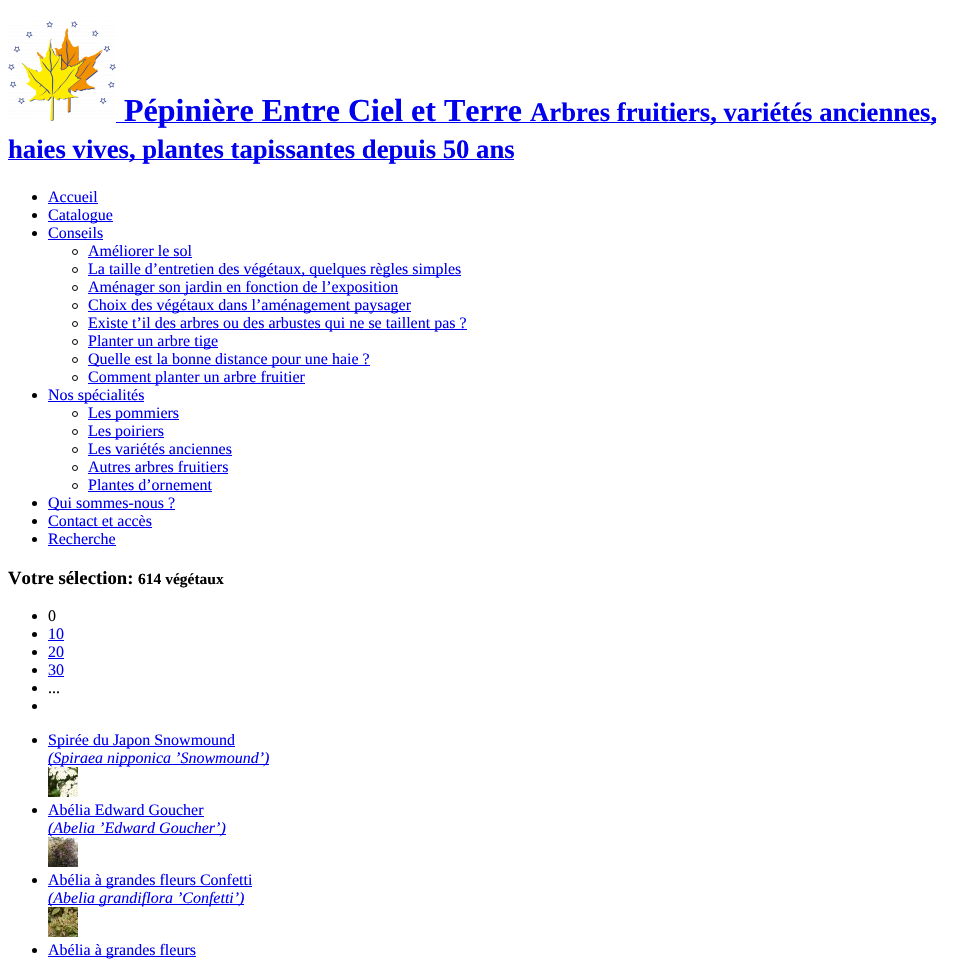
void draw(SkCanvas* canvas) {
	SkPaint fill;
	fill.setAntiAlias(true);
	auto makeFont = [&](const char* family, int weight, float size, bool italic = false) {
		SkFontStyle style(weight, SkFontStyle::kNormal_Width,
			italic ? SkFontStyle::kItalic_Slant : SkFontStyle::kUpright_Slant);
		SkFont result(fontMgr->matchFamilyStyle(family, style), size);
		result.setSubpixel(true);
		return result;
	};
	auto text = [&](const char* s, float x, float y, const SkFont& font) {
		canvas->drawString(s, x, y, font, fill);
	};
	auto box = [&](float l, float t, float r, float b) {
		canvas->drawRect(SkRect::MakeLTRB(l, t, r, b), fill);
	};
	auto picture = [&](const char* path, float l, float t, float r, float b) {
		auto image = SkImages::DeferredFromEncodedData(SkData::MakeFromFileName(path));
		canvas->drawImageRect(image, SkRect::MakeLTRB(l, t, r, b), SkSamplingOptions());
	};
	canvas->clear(0xFFFFFFFF);
	picture("image0.png", 8, 21, 116, 121);
	fill.setColor(0xFF0000EE);
	box(116, 122, 936, 123);
	box(8, 159, 514, 160);
	fill.setColor(0xFF000000);
	canvas->drawCircle(34.5f, 197.5f, 2.5f, fill);
	fill.setColor(0xFF0000EE);
	box(48, 203, 98, 204);
	fill.setColor(0xFF000000);
	canvas->drawCircle(34.5f, 215.5f, 2.5f, fill);
	fill.setColor(0xFF0000EE);
	box(48, 221, 113, 222);
	fill.setColor(0xFF000000);
	canvas->drawCircle(34.5f, 233.5f, 2.5f, fill);
	fill.setColor(0xFF0000EE);
	box(48, 239, 103, 240);
	fill.setStyle(SkPaint::kStroke_Style);
	fill.setStrokeWidth(1);
	fill.setColor(0xFF000000);
	canvas->drawCircle(75, 252, 2.5f, fill);
	fill.setStyle(SkPaint::kFill_Style);
	fill.setColor(0xFF0000EE);
	box(88, 257, 192, 258);
	fill.setStyle(SkPaint::kStroke_Style);
	fill.setColor(0xFF000000);
	canvas->drawCircle(75, 270, 2.5f, fill);
	fill.setStyle(SkPaint::kFill_Style);
	fill.setColor(0xFF0000EE);
	box(88, 275, 461, 276);
	fill.setStyle(SkPaint::kStroke_Style);
	fill.setColor(0xFF000000);
	canvas->drawCircle(75, 288, 2.5f, fill);
	fill.setStyle(SkPaint::kFill_Style);
	fill.setColor(0xFF0000EE);
	box(88, 293, 398, 294);
	fill.setStyle(SkPaint::kStroke_Style);
	fill.setColor(0xFF000000);
	canvas->drawCircle(75, 306, 2.5f, fill);
	fill.setStyle(SkPaint::kFill_Style);
	fill.setColor(0xFF0000EE);
	box(88, 311, 411, 312);
	fill.setStyle(SkPaint::kStroke_Style);
	fill.setColor(0xFF000000);
	canvas->drawCircle(75, 324, 2.5f, fill);
	fill.setStyle(SkPaint::kFill_Style);
	fill.setColor(0xFF0000EE);
	box(88, 329, 467, 330);
	fill.setStyle(SkPaint::kStroke_Style);
	fill.setColor(0xFF000000);
	canvas->drawCircle(75, 342, 2.5f, fill);
	fill.setStyle(SkPaint::kFill_Style);
	fill.setColor(0xFF0000EE);
	box(88, 347, 218, 348);
	fill.setStyle(SkPaint::kStroke_Style);
	fill.setColor(0xFF000000);
	canvas->drawCircle(75, 360, 2.5f, fill);
	fill.setStyle(SkPaint::kFill_Style);
	fill.setColor(0xFF0000EE);
	box(88, 365, 370, 366);
	fill.setStyle(SkPaint::kStroke_Style);
	fill.setColor(0xFF000000);
	canvas->drawCircle(75, 378, 2.5f, fill);
	fill.setStyle(SkPaint::kFill_Style);
	fill.setColor(0xFF0000EE);
	box(88, 383, 305, 384);
	fill.setColor(0xFF000000);
	canvas->drawCircle(34.5f, 395.5f, 2.5f, fill);
	fill.setColor(0xFF0000EE);
	box(48, 401, 144, 402);
	fill.setStyle(SkPaint::kStroke_Style);
	fill.setColor(0xFF000000);
	canvas->drawCircle(75, 414, 2.5f, fill);
	fill.setStyle(SkPaint::kFill_Style);
	fill.setColor(0xFF0000EE);
	box(88, 419, 179, 420);
	fill.setStyle(SkPaint::kStroke_Style);
	fill.setColor(0xFF000000);
	canvas->drawCircle(75, 432, 2.5f, fill);
	fill.setStyle(SkPaint::kFill_Style);
	fill.setColor(0xFF0000EE);
	box(88, 437, 164, 438);
	fill.setStyle(SkPaint::kStroke_Style);
	fill.setColor(0xFF000000);
	canvas->drawCircle(75, 450, 2.5f, fill);
	fill.setStyle(SkPaint::kFill_Style);
	fill.setColor(0xFF0000EE);
	box(88, 455, 232, 456);
	fill.setStyle(SkPaint::kStroke_Style);
	fill.setColor(0xFF000000);
	canvas->drawCircle(75, 468, 2.5f, fill);
	fill.setStyle(SkPaint::kFill_Style);
	fill.setColor(0xFF0000EE);
	box(88, 473, 228, 474);
	fill.setStyle(SkPaint::kStroke_Style);
	fill.setColor(0xFF000000);
	canvas->drawCircle(75, 486, 2.5f, fill);
	fill.setStyle(SkPaint::kFill_Style);
	fill.setColor(0xFF0000EE);
	box(88, 491, 212, 492);
	fill.setColor(0xFF000000);
	canvas->drawCircle(34.5f, 503.5f, 2.5f, fill);
	fill.setColor(0xFF0000EE);
	box(48, 509, 175, 510);
	fill.setColor(0xFF000000);
	canvas->drawCircle(34.5f, 521.5f, 2.5f, fill);
	fill.setColor(0xFF0000EE);
	box(48, 527, 152, 528);
	fill.setColor(0xFF000000);
	canvas->drawCircle(34.5f, 539.5f, 2.5f, fill);
	fill.setColor(0xFF0000EE);
	box(48, 545, 116, 546);
	fill.setColor(0xFF000000);
	canvas->drawCircle(34.5f, 616.5f, 2.5f, fill);
	canvas->drawCircle(34.5f, 634.5f, 2.5f, fill);
	fill.setColor(0xFF0000EE);
	box(48, 640, 64, 641);
	fill.setColor(0xFF000000);
	canvas->drawCircle(34.5f, 652.5f, 2.5f, fill);
	fill.setColor(0xFF0000EE);
	box(48, 658, 64, 659);
	fill.setColor(0xFF000000);
	canvas->drawCircle(34.5f, 670.5f, 2.5f, fill);
	fill.setColor(0xFF0000EE);
	box(48, 676, 64, 677);
	fill.setColor(0xFF000000);
	canvas->drawCircle(34.5f, 688.5f, 2.5f, fill);
	canvas->drawCircle(34.5f, 706.5f, 2.5f, fill);
	canvas->drawCircle(34.5f, 740.5f, 2.5f, fill);
	fill.setColor(0xFF0000EE);
	box(48, 746, 235, 747);
	box(48, 764, 269, 765);
	picture("image1.png", 48, 767, 78, 797);
	fill.setColor(0xFF000000);
	canvas->drawCircle(34.5f, 810.5f, 2.5f, fill);
	fill.setColor(0xFF0000EE);
	box(48, 816, 204, 817);
	box(48, 834, 226, 835);
	picture("image2.png", 48, 837, 78, 867);
	fill.setColor(0xFF000000);
	canvas->drawCircle(34.5f, 880.5f, 2.5f, fill);
	fill.setColor(0xFF0000EE);
	box(48, 886, 252, 887);
	box(48, 904, 244, 905);
	picture("image3.png", 48, 907, 78, 937);
	fill.setColor(0xFF000000);
	canvas->drawCircle(34.5f, 950.5f, 2.5f, fill);
	fill.setColor(0xFF0000EE);
	box(48, 956, 196, 957);
	auto font1 = makeFont("Liberation Serif", 700, 32);
	text("Pépinière Entre Ciel et Terre", 124, 121, font1);
	auto font2 = makeFont("Liberation Serif", 700, 26.7f);
	text("Arbres fruitiers, variétés anciennes,", 530, 121, font2);
	text("haies vives, plantes tapissantes depuis 50 ans", 8, 158, font2);
	auto font3 = makeFont("Liberation Serif", 400, 16);
	text("Accueil", 48, 202, font3);
	text("Catalogue", 48, 220, font3);
	text("Conseils", 48, 238, font3);
	text("Améliorer le sol", 88, 256, font3);
	text("La taille d’entretien des végétaux, quelques règles simples", 88, 274, font3);
	text("Aménager son jardin en fonction de l’exposition", 88, 292, font3);
	text("Choix des végétaux dans l’aménagement paysager", 88, 310, font3);
	text("Existe t’il des arbres ou des arbustes qui ne se taillent pas ?", 88, 328, font3);
	text("Planter un arbre tige", 88, 346, font3);
	text("Quelle est la bonne distance pour une haie ?", 88, 364, font3);
	text("Comment planter un arbre fruitier", 88, 382, font3);
	text("Nos spécialités", 48, 400, font3);
	text("Les pommiers", 88, 418, font3);
	text("Les poiriers", 88, 436, font3);
	text("Les variétés anciennes", 88, 454, font3);
	text("Autres arbres fruitiers", 88, 472, font3);
	text("Plantes d’ornement", 88, 490, font3);
	text("Qui sommes-nous ?", 48, 508, font3);
	text("Contact et accès", 48, 526, font3);
	text("Recherche", 48, 544, font3);
	auto font4 = makeFont("Liberation Serif", 700, 18.75f);
	fill.setColor(0xFF000000);
	text("Votre sélection:", 8, 584, font4);
	auto font5 = makeFont("Liberation Serif", 700, 15.5f);
	text("614 végétaux", 138, 584, font5);
	text("0", 48, 621, font3);
	fill.setColor(0xFF0000EE);
	text("10", 48, 639, font3);
	text("20", 48, 657, font3);
	text("30", 48, 675, font3);
	fill.setColor(0xFF000000);
	text("...", 48, 693, font3);
	fill.setColor(0xFF0000EE);
	text("Spirée du Japon Snowmound", 48, 745, font3);
	auto font6 = makeFont("Liberation Serif", 400, 16, true);
	text("(Spiraea nipponica ’Snowmound’)", 48, 763, font6);
	text("Abélia Edward Goucher", 48, 815, font3);
	text("(Abelia ’Edward Goucher’)", 48, 833, font6);
	text("Abélia à grandes fleurs Confetti", 48, 885, font3);
	text("(Abelia grandiflora ’Confetti’)", 48, 903, font6);
	text("Abélia à grandes fleurs", 48, 955, font3);
}
